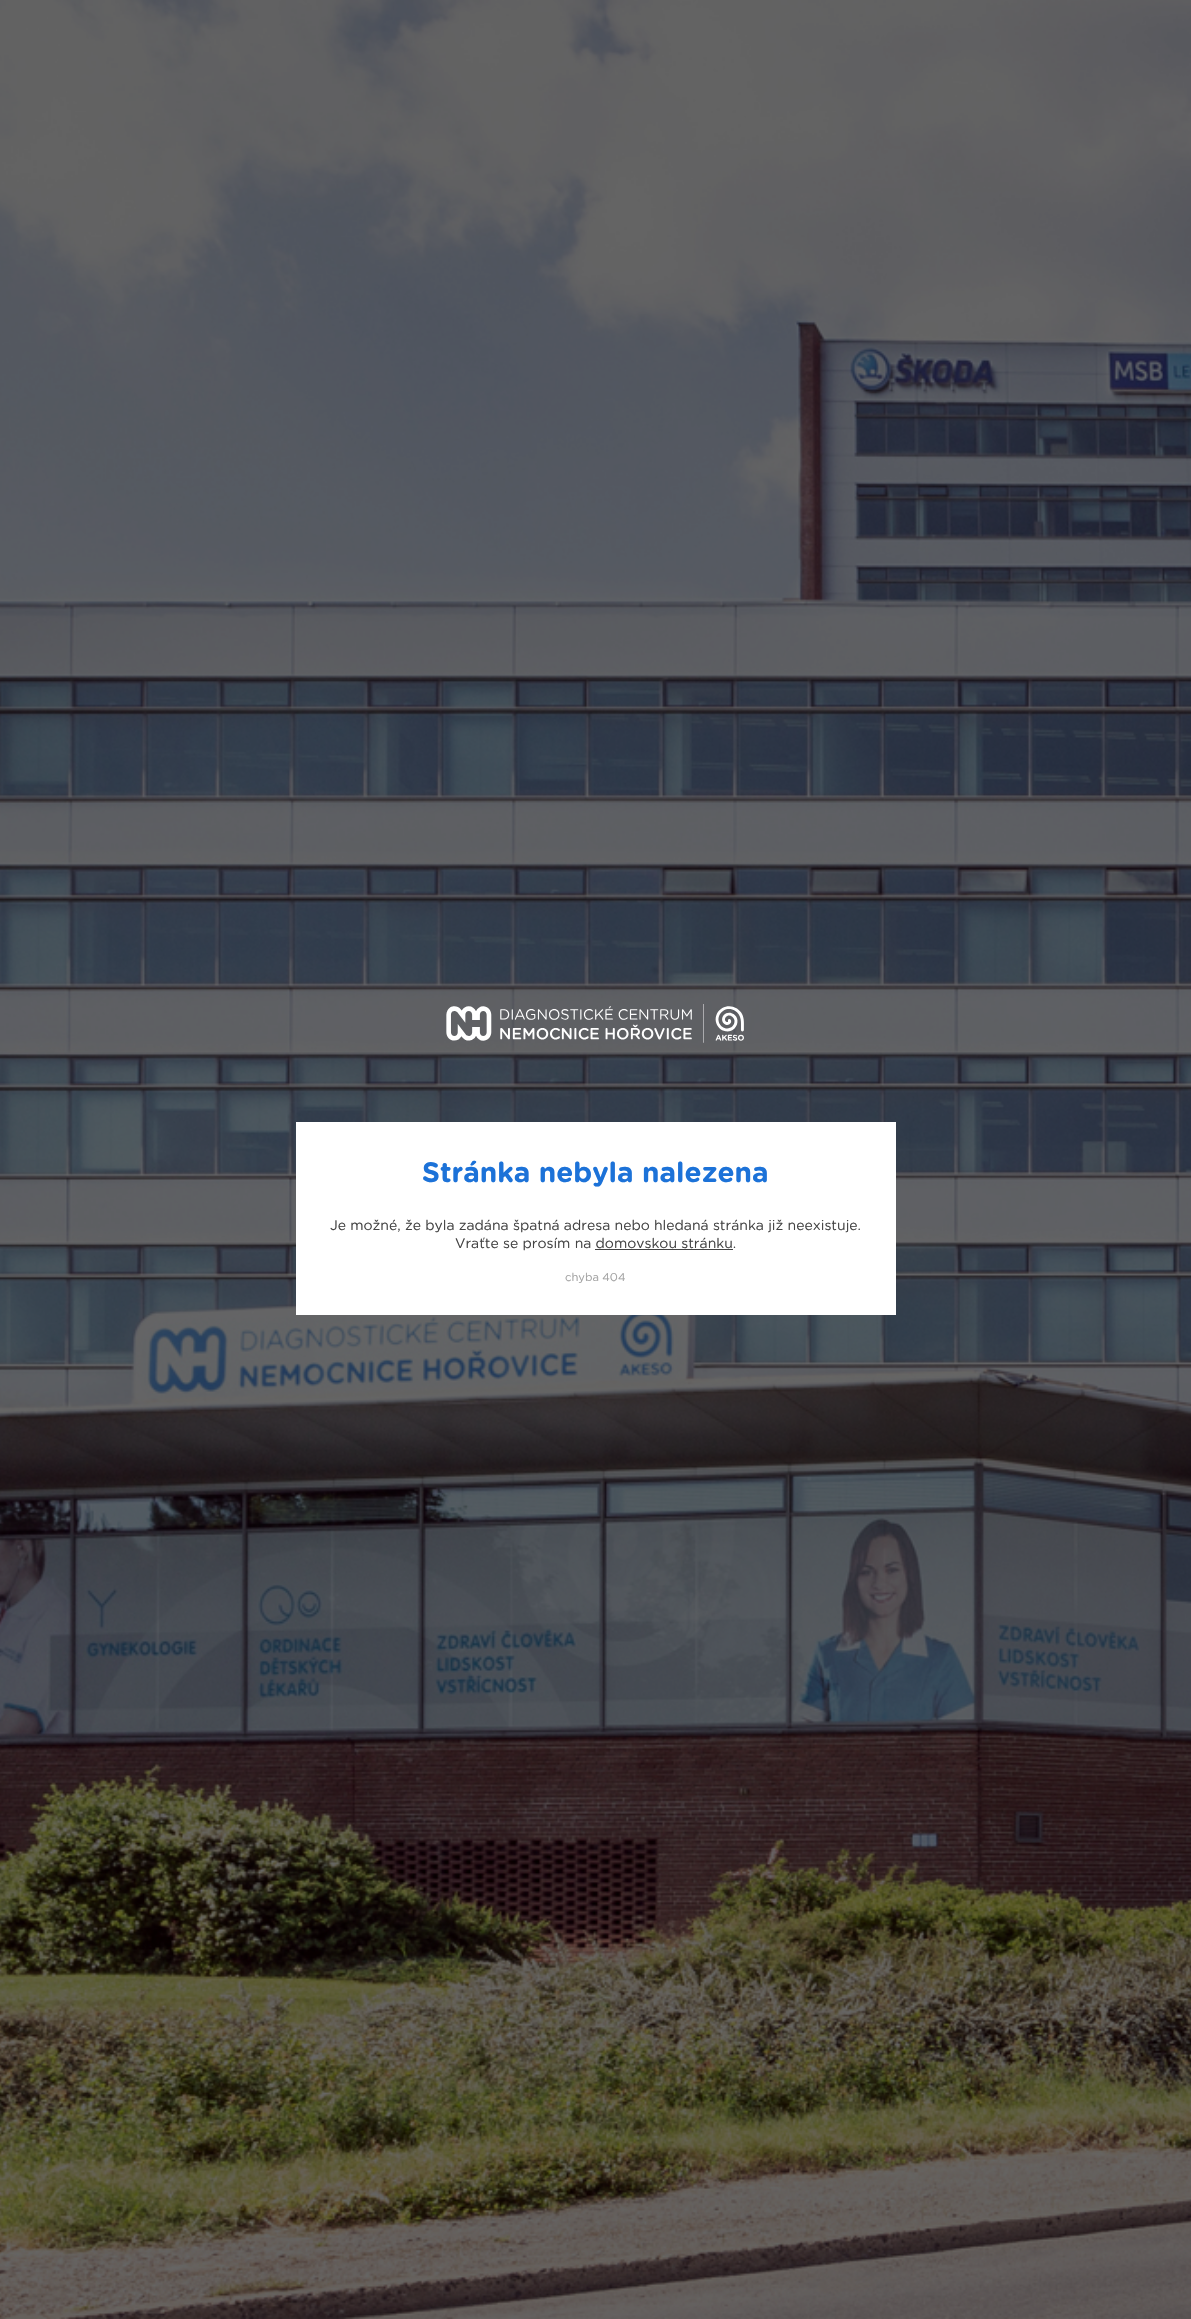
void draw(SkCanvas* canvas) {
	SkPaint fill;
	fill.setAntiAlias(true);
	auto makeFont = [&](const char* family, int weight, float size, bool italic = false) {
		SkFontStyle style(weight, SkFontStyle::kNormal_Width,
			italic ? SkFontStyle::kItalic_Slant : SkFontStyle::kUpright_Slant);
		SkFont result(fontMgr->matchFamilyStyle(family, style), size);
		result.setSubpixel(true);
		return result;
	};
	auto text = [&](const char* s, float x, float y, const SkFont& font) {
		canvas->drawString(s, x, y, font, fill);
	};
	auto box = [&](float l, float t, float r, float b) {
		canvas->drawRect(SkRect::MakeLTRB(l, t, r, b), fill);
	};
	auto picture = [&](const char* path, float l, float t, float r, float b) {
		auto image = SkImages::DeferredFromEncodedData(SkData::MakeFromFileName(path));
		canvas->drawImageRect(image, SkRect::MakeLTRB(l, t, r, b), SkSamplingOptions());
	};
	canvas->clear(0xFFFFFFFF);
	picture("image0.png", 0, 0, 1191, 2319);
	picture("image1.png", 446, 1004, 744, 1043);
	fill.setColor(0xFFFFFFFF);
	box(296, 1122, 896, 1315);
	fill.setColor(0xFF444444);
	box(595, 1249, 733, 1250);
	auto font1 = makeFont("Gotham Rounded", 700, 28);
	fill.setColor(0xFF1C72D8);
	text("Stránka nebyla nalezena", 422, 1182, font1);
	auto font2 = makeFont("Gotham Rounded", 400, 14);
	fill.setColor(0xFF444444);
	text("Je možné, že byla zadána špatná adresa nebo hledaná stránka již neexistuje.", 330, 1230, font2);
	text("Vraťte se prosím na domovskou stránku.", 455, 1248, font2);
	auto font3 = makeFont("Gotham Rounded", 400, 11.25f);
	fill.setColor(0xFFA2A2A2);
	text("chyba 404", 565, 1281, font3);
}
